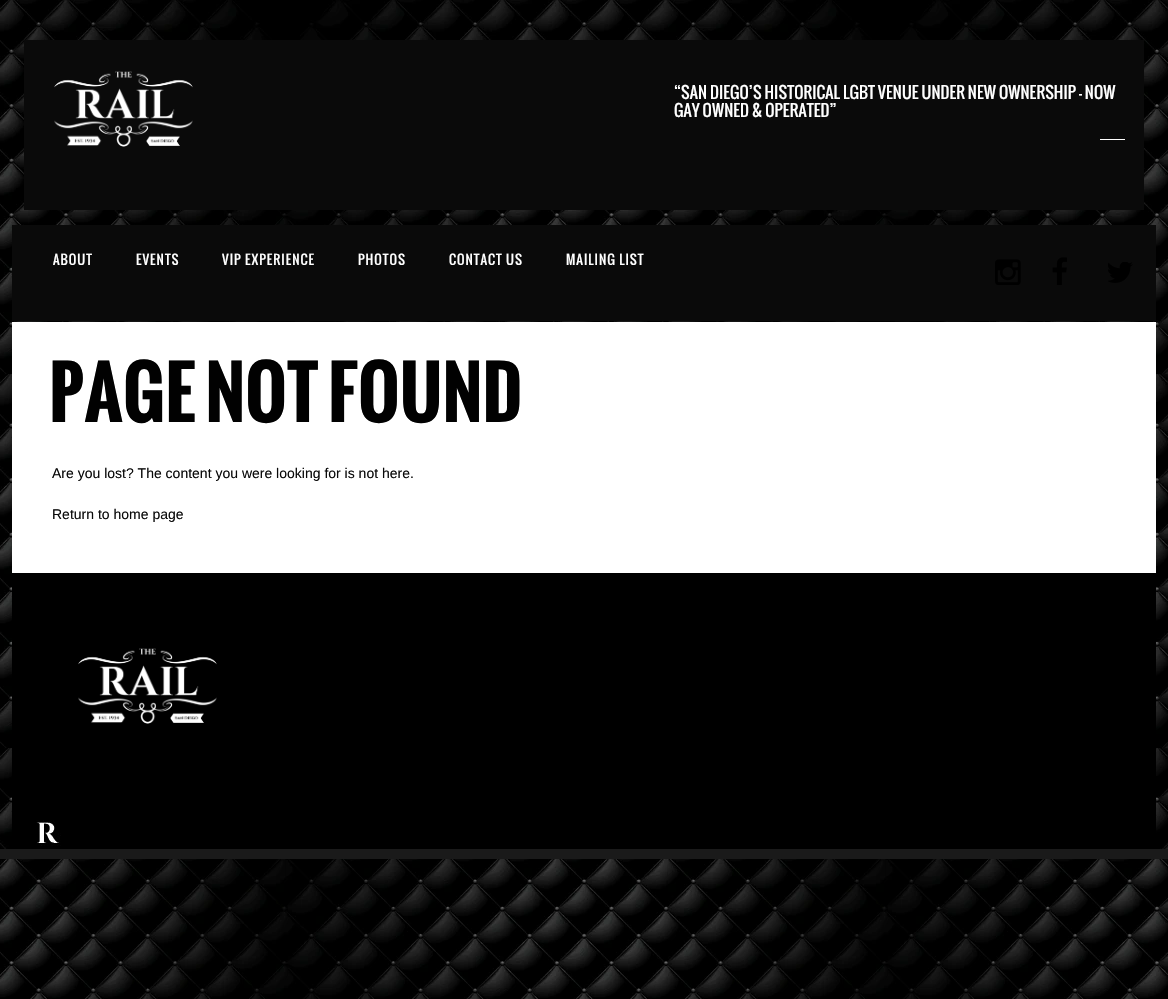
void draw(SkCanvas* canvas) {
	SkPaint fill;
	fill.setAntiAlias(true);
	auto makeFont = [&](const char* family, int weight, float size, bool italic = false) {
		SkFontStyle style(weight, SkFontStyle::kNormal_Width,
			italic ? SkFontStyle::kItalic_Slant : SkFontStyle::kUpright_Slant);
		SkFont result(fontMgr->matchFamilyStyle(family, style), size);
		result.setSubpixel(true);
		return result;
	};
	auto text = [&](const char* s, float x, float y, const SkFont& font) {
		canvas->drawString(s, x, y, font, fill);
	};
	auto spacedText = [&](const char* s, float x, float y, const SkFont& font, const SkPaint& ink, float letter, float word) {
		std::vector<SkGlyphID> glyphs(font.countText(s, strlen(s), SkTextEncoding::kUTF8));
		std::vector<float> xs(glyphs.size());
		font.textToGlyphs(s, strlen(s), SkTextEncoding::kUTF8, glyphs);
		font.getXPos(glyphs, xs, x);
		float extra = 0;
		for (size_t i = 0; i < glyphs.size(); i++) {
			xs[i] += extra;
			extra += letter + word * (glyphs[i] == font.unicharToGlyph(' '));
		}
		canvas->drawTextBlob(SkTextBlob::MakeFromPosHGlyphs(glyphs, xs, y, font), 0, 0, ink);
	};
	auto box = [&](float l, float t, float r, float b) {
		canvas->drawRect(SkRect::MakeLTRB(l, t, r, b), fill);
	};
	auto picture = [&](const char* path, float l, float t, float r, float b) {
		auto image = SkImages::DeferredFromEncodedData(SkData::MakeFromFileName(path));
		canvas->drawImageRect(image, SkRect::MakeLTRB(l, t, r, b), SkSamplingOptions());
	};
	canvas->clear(0xFFFFFFFF);
	picture("image0.png", 0, 0, 1168, 999);
	fill.setColor(0xFF1A1A1A);
	box(0, 849, 1168, 859);
	fill.setColor(0xFF0A0A0A);
	box(24, 40, 1144, 210);
	picture("image1.png", 54, 71, 193, 147);
	fill.setColor(0xFFFFFFFF);
	box(1100, 139, 1125, 140);
	fill.setColor(0xFF0A0A0A);
	box(12, 225, 1156, 321);
	picture("image2.png", 995, 259, 1021, 285);
	picture("image3.png", 1052, 257, 1067, 285);
	picture("image4.png", 1108, 262, 1133, 283);
	fill.setColor(0xFFFFFFFF);
	box(12, 322, 1156, 573);
	fill.setColor(0xFF000000);
	box(12, 573, 1156, 849);
	picture("image5.png", 78, 648, 217, 724);
	picture("image6.png", 36, 820, 61, 846);
	auto font1 = makeFont("Oswald", 400, 16);
	fill.setColor(0xFFFFFFFF);
	spacedText("“SAN DIEGO’S HISTORICAL LGBT VENUE UNDER NEW OWNERSHIP - NOW", 674, 99, font1, fill, 0.1f, 0);
	spacedText("GAY OWNED & OPERATED”", 674, 117, font1, fill, 0.1f, 0);
	auto font2 = makeFont("Oswald", 400, 13);
	spacedText("ABOUT", 53, 265, font2, fill, 1, 0);
	spacedText("EVENTS", 136, 265, font2, fill, 1, 0);
	spacedText("VIP EXPERIENCE", 222, 265, font2, fill, 1, 0);
	spacedText("PHOTOS", 358, 265, font2, fill, 1, 0);
	spacedText("CONTACT US", 449, 265, font2, fill, 1, 0);
	spacedText("MAILING LIST", 566, 265, font2, fill, 1, 0);
	auto font3 = makeFont("Oswald", 700, 70);
	fill.setColor(0xFF010101);
	text("PAGE NOT FOUND", 49, 422, font3);
	auto font4 = makeFont("Liberation Sans", 400, 14);
	fill.setColor(0xFF0A0A0A);
	text("Are you lost? The content you were looking for is not here.", 52, 478, font4);
	text("Return to home page", 52, 519, font4);
}
